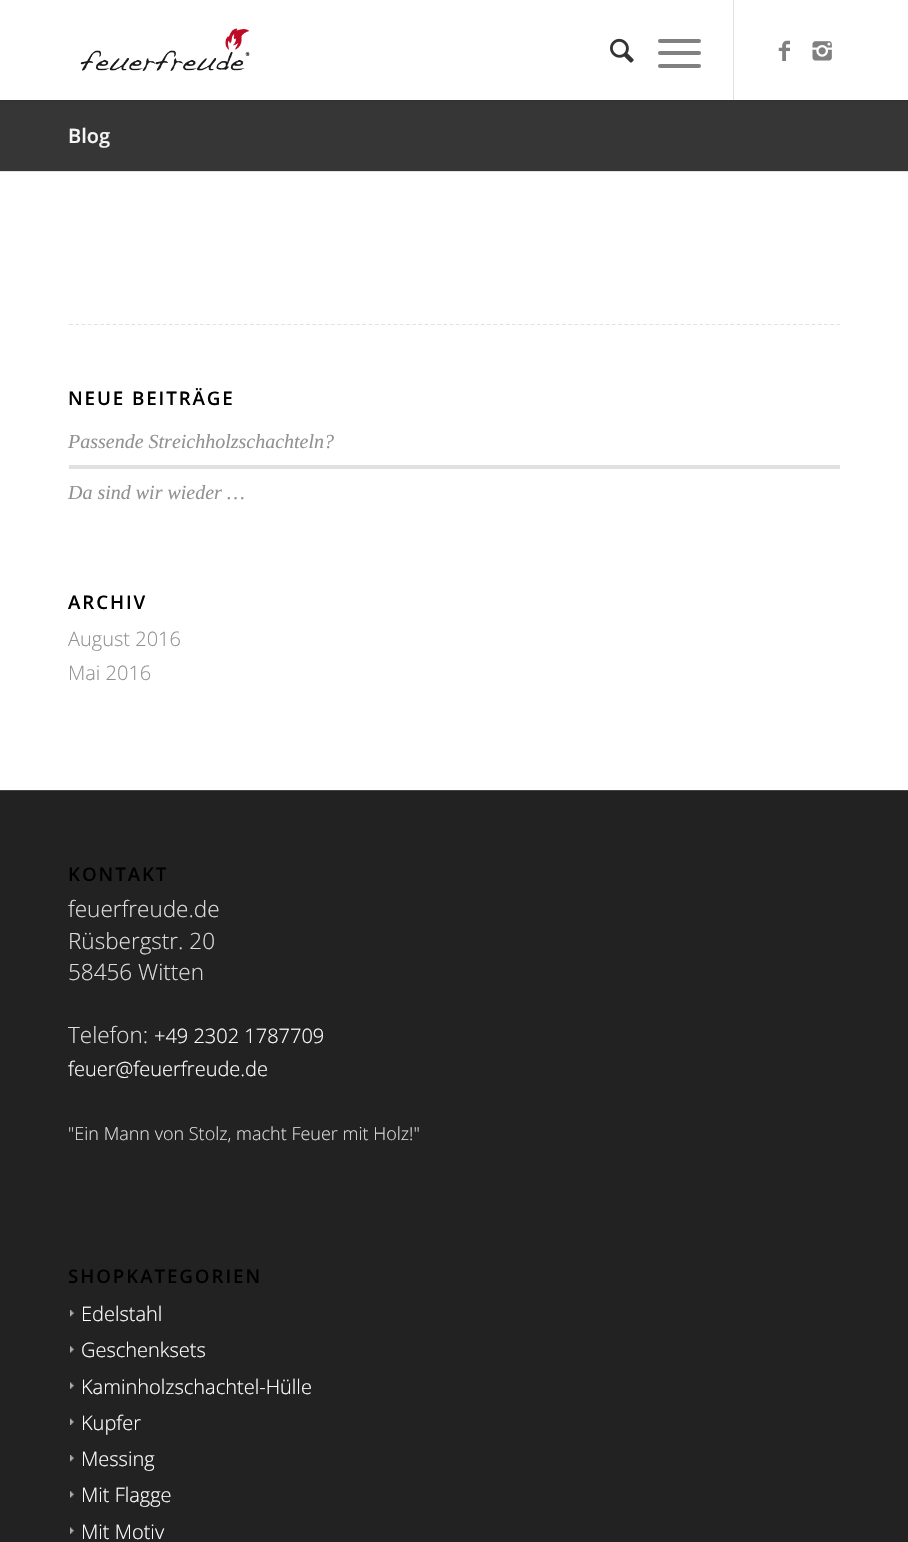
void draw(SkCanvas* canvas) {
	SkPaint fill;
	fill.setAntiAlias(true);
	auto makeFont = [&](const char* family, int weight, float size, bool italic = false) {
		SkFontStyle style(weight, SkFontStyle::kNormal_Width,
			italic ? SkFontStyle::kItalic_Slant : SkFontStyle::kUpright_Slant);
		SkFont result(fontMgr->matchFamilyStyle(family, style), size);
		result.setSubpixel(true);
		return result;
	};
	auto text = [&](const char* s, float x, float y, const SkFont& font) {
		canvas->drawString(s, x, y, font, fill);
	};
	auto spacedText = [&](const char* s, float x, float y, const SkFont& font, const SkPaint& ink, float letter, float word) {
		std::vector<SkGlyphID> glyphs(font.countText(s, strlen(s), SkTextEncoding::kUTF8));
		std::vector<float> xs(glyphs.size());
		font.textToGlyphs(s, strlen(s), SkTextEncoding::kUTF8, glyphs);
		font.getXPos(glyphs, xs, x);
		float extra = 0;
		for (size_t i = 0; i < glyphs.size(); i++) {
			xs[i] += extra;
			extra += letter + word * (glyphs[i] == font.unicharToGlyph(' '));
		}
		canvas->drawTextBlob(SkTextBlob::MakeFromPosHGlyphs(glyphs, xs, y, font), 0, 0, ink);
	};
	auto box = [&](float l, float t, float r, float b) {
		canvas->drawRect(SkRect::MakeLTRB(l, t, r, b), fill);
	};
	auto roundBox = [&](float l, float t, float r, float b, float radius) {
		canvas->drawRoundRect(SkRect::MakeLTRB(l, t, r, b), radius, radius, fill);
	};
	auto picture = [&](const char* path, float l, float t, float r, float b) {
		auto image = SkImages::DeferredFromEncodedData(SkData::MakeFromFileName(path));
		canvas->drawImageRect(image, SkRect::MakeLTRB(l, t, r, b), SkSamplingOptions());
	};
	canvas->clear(0xFFFFFFFF);
	fill.setColor(0xFF363636);
	box(0, 100, 908, 171);
	fill.setColor(0x1A000000);
	fill.setMaskFilter(SkMaskFilter::MakeBlur(kNormal_SkBlurStyle, 1));
	canvas->drawRect(SkRect::MakeLTRB(-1, -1, 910, 101), fill);
	fill.setMaskFilter(nullptr);
	fill.setColor(0xFFFFFFFF);
	box(0, 0, 908, 100);
	picture("image0.png", 80, 28, 250, 71);
	fill.setColor(0xFFE1E1E1);
	box(733, 0, 734, 100);
	picture("image1.png", 610, 38, 634, 63);
	fill.setColor(0xFF808080);
	roundBox(658, 51, 701, 55, 2);
	roundBox(658, 39, 701, 43, 2);
	roundBox(658, 64, 701, 68, 2);
	picture("image2.png", 778, 40, 790, 61);
	picture("image3.png", 812, 41, 832, 61);
	fill.setColor(0xFFE1E1E1);
	box(0, 171, 908, 172);
	fill.setStyle(SkPaint::kStroke_Style);
	fill.setStrokeWidth(1.2f);
	fill.setPathEffect(SkDashPathEffect::Make({{3.75f, 2.49f}}, 0));
	canvas->drawPath(SkPathBuilder().moveTo(69, 324.5f).lineTo(840, 324.5f).detach(), fill);
	fill.setPathEffect(nullptr);
	fill.setStyle(SkPaint::kFill_Style);
	box(69, 465, 840, 469);
	fill.setColor(0xFF222222);
	box(0, 791, 908, 1542);
	fill.setColor(0xFF444444);
	box(0, 790, 908, 791);
	picture("image4.png", 70, 1310, 74, 1317);
	picture("image5.png", 70, 1346, 74, 1353);
	picture("image6.png", 70, 1382, 74, 1389);
	picture("image7.png", 70, 1418, 74, 1425);
	picture("image4.png", 70, 1455, 74, 1462);
	picture("image5.png", 70, 1491, 74, 1498);
	picture("image6.png", 70, 1527, 74, 1534);
	auto font1 = makeFont("Open Sans", 600, 20);
	fill.setColor(0xFFF5F5F5);
	text("Blog", 68, 143, font1);
	auto font2 = makeFont("Open Sans", 600, 18.75f);
	fill.setColor(0xFF000000);
	spacedText("NEUE BEITRÄGE", 68, 405, font2, fill, 1.9f, 0);
	auto font3 = makeFont("Liberation Serif", 400, 20, true);
	fill.setColor(0xFF919191);
	text("Passende Streichholzschachteln?", 68, 448, font3);
	text("Da sind wir wieder …", 68, 499, font3);
	fill.setColor(0xFF000000);
	spacedText("ARCHIV", 68, 609, font2, fill, 1.9f, 0);
	auto font4 = makeFont("Open Sans", 300, 20);
	fill.setColor(0xFF919191);
	text("August 2016", 68, 646, font4);
	text("Mai 2016", 68, 680, font4);
	fill.setColor(0xFF000000);
	spacedText("KONTAKT", 68, 881, font2, fill, 1.9f, 0);
	auto font5 = makeFont("Open Sans", 300, 22.5f);
	fill.setColor(0xFFDDDDDD);
	text("feuerfreude.de", 68, 917, font5);
	text("Rüsbergstr. 20", 68, 949, font5);
	text("58456 Witten", 68, 980, font5);
	text("Telefon:", 68, 1043, font5);
	fill.setColor(0xFFFFFFFF);
	text("+49 2302 1787709", 154, 1043, font4);
	text("feuer@feuerfreude.de", 68, 1076, font4);
	auto font6 = makeFont("Open Sans", 300, 18);
	fill.setColor(0xFFDDDDDD);
	text("\"Ein Mann von Stolz, macht Feuer mit Holz!\"", 68, 1140, font6);
	fill.setColor(0xFF000000);
	spacedText("SHOPKATEGORIEN", 68, 1283, font2, fill, 1.9f, 0);
	fill.setColor(0xFFFFFFFF);
	text("Edelstahl", 81, 1321, font4);
	text("Geschenksets", 81, 1357, font4);
	text("Kaminholzschachtel-Hülle", 81, 1394, font4);
	text("Kupfer", 81, 1430, font4);
	text("Messing", 81, 1466, font4);
	text("Mit Flagge", 81, 1502, font4);
	text("Mit Motiv", 81, 1539, font4);
}
